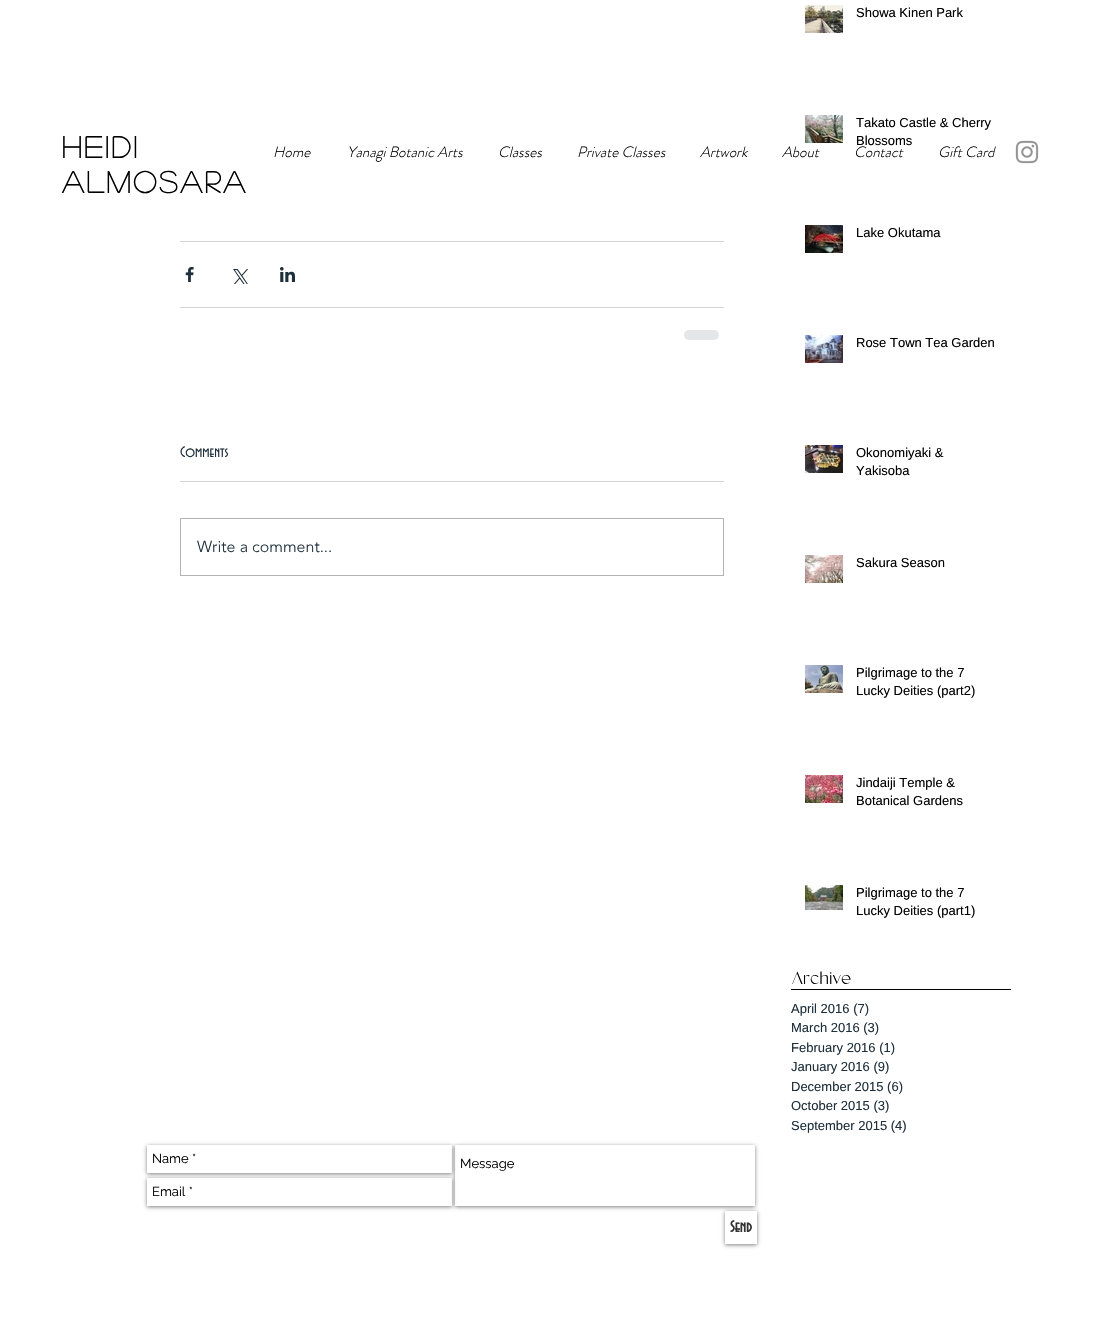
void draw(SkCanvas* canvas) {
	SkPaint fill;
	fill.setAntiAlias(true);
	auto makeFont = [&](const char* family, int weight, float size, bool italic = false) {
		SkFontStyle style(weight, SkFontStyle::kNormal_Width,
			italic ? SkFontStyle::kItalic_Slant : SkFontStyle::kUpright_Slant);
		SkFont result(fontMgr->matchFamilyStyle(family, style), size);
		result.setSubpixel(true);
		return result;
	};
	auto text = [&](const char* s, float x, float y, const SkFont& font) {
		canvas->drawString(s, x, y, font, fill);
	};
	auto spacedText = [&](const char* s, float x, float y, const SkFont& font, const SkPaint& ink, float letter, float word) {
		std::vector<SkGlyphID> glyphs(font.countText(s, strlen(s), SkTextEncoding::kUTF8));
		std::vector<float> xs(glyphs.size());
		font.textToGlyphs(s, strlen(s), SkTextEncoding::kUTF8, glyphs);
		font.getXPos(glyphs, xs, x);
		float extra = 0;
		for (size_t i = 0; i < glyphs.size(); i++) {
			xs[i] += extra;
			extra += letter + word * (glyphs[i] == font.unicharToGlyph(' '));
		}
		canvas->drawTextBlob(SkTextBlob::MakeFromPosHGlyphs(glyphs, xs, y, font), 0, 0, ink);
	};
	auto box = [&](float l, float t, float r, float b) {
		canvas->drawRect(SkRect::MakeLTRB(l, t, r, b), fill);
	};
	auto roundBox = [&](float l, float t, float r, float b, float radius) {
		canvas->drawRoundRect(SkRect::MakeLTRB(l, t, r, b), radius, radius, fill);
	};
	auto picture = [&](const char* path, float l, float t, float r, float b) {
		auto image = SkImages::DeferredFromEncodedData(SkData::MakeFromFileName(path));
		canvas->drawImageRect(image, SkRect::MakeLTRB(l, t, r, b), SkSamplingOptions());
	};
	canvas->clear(0xFFFFFFFF);
	fill.setColor(0xFFD2D5D8);
	box(180, 241, 724, 242);
	picture("image0.png", 185, 267, 194, 282);
	picture("image1.png", 233, 269, 248, 284);
	picture("image2.png", 280, 267, 295, 282);
	box(180, 307, 724, 308);
	fill.setColor(0xFFE4E6E7);
	roundBox(684, 330, 719, 340, 5);
	fill.setColor(0xFFD2D5D8);
	box(180, 481, 724, 482);
	fill.setStyle(SkPaint::kStroke_Style);
	fill.setStrokeWidth(1);
	fill.setColor(0xFFB3B3B3);
	canvas->drawRect(SkRect::MakeLTRB(180.5f, 518.5f, 723.5f, 575.5f), fill);
	picture("image3.png", 805, 5, 843, 33);
	picture("image4.png", 805, 115, 843, 143);
	picture("image5.png", 805, 225, 843, 253);
	picture("image6.png", 805, 335, 843, 363);
	picture("image7.png", 805, 445, 843, 473);
	picture("image8.png", 805, 555, 843, 583);
	picture("image9.png", 805, 665, 843, 693);
	picture("image10.png", 805, 775, 843, 803);
	picture("image11.png", 805, 885, 843, 910);
	fill.setStyle(SkPaint::kFill_Style);
	fill.setColor(0xFF000000);
	box(791, 989, 1011, 990);
	canvas->save();
	canvas->clipPath(SkPathBuilder(SkPathFillType::kEvenOdd).moveTo(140, 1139).lineTo(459, 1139).lineTo(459, 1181).lineTo(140, 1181).close().moveTo(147, 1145).lineTo(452, 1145).lineTo(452, 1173).lineTo(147, 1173).close().detach(), true);
	fill.setColor(0x80000000);
	fill.setMaskFilter(SkMaskFilter::MakeBlur(kNormal_SkBlurStyle, 2));
	canvas->drawRect(SkRect::MakeLTRB(147, 1146, 452, 1174), fill);
	fill.setMaskFilter(nullptr);
	canvas->restore();
	canvas->save();
	canvas->clipPath(SkPathBuilder(SkPathFillType::kEvenOdd).moveTo(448, 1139).lineTo(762, 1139).lineTo(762, 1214).lineTo(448, 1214).close().moveTo(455, 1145).lineTo(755, 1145).lineTo(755, 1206).lineTo(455, 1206).close().detach(), true);
	fill.setMaskFilter(SkMaskFilter::MakeBlur(kNormal_SkBlurStyle, 2));
	canvas->drawRect(SkRect::MakeLTRB(455, 1146, 755, 1207), fill);
	fill.setMaskFilter(nullptr);
	canvas->restore();
	canvas->save();
	canvas->clipPath(SkPathBuilder(SkPathFillType::kEvenOdd).moveTo(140, 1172).lineTo(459, 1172).lineTo(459, 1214).lineTo(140, 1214).close().moveTo(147, 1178).lineTo(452, 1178).lineTo(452, 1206).lineTo(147, 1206).close().detach(), true);
	fill.setMaskFilter(SkMaskFilter::MakeBlur(kNormal_SkBlurStyle, 2));
	canvas->drawRect(SkRect::MakeLTRB(147, 1179, 452, 1207), fill);
	fill.setMaskFilter(nullptr);
	canvas->restore();
	canvas->save();
	canvas->clipPath(SkPathBuilder(SkPathFillType::kEvenOdd).moveTo(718, 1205).lineTo(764, 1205).lineTo(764, 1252).lineTo(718, 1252).close().moveTo(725, 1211).lineTo(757, 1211).lineTo(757, 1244).lineTo(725, 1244).close().detach(), true);
	fill.setMaskFilter(SkMaskFilter::MakeBlur(kNormal_SkBlurStyle, 2));
	canvas->drawRect(SkRect::MakeLTRB(725, 1212, 757, 1245), fill);
	fill.setMaskFilter(nullptr);
	canvas->restore();
	picture("image12.png", 1015, 140, 1039, 164);
	auto font1 = makeFont("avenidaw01", 400, 16);
	fill.setColor(0xFF1E2F3B);
	text("Comments", 180, 457, font1);
	auto font2 = makeFont("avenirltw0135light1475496", 300, 16);
	text("Write a comment...", 197, 552, font2);
	auto font3 = makeFont("Liberation Sans", 400, 13);
	fill.setColor(0xFF000000);
	text("Showa Kinen Park", 856, 17, font3);
	text("Takato Castle & Cherry", 856, 127, font3);
	text("Blossoms", 856, 145, font3);
	text("Lake Okutama", 856, 237, font3);
	text("Rose Town Tea Garden", 856, 347, font3);
	text("Okonomiyaki &", 856, 457, font3);
	text("Yakisoba", 856, 475, font3);
	text("Sakura Season", 856, 567, font3);
	text("Pilgrimage to the 7", 856, 677, font3);
	text("Lucky Deities (part2)", 856, 695, font3);
	text("Jindaiji Temple &", 856, 787, font3);
	text("Botanical Gardens", 856, 805, font3);
	text("Pilgrimage to the 7", 856, 897, font3);
	text("Lucky Deities (part1)", 856, 915, font3);
	auto font4 = makeFont("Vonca", 300, 18);
	text("Archive", 792, 984, font4);
	fill.setColor(0xFF1E2F3B);
	text("April 2016 (7)", 791, 1013, font3);
	text("March 2016 (3)", 791, 1032, font3);
	text("February 2016 (1)", 791, 1052, font3);
	text("January 2016 (9)", 791, 1071, font3);
	text("December 2015 (6)", 791, 1091, font3);
	text("October 2015 (3)", 791, 1110, font3);
	text("September 2015 (4)", 791, 1130, font3);
	auto font5 = makeFont("Raleway", 400, 13);
	fill.setColor(0xFF000000);
	text("Name *", 152, 1163, font5);
	text("Message", 460, 1168, font5);
	text("Email *", 152, 1196, font5);
	auto font6 = makeFont("avenidaw01", 700, 17);
	fill.setColor(0xFF333333);
	text("Send", 730, 1232, font6);
	auto font7 = makeFont("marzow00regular", 700, 30);
	fill.setColor(0xFF000000);
	spacedText("Heidi", 62, 158, font7, fill, 3, 0);
	spacedText("Almosara", 62, 193, font7, fill, 3, 0);
	auto font8 = makeFont("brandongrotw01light", 300, 15, true);
	text("Home", 273, 157, font8);
	text("Yanagi Botanic Arts", 347, 157, font8);
	text("Classes", 498, 157, font8);
	text("Private Classes", 577, 157, font8);
	text("Artwork", 700, 157, font8);
	text("About", 782, 157, font8);
	text("Contact", 854, 157, font8);
	text("Gift Card", 938, 157, font8);
}
